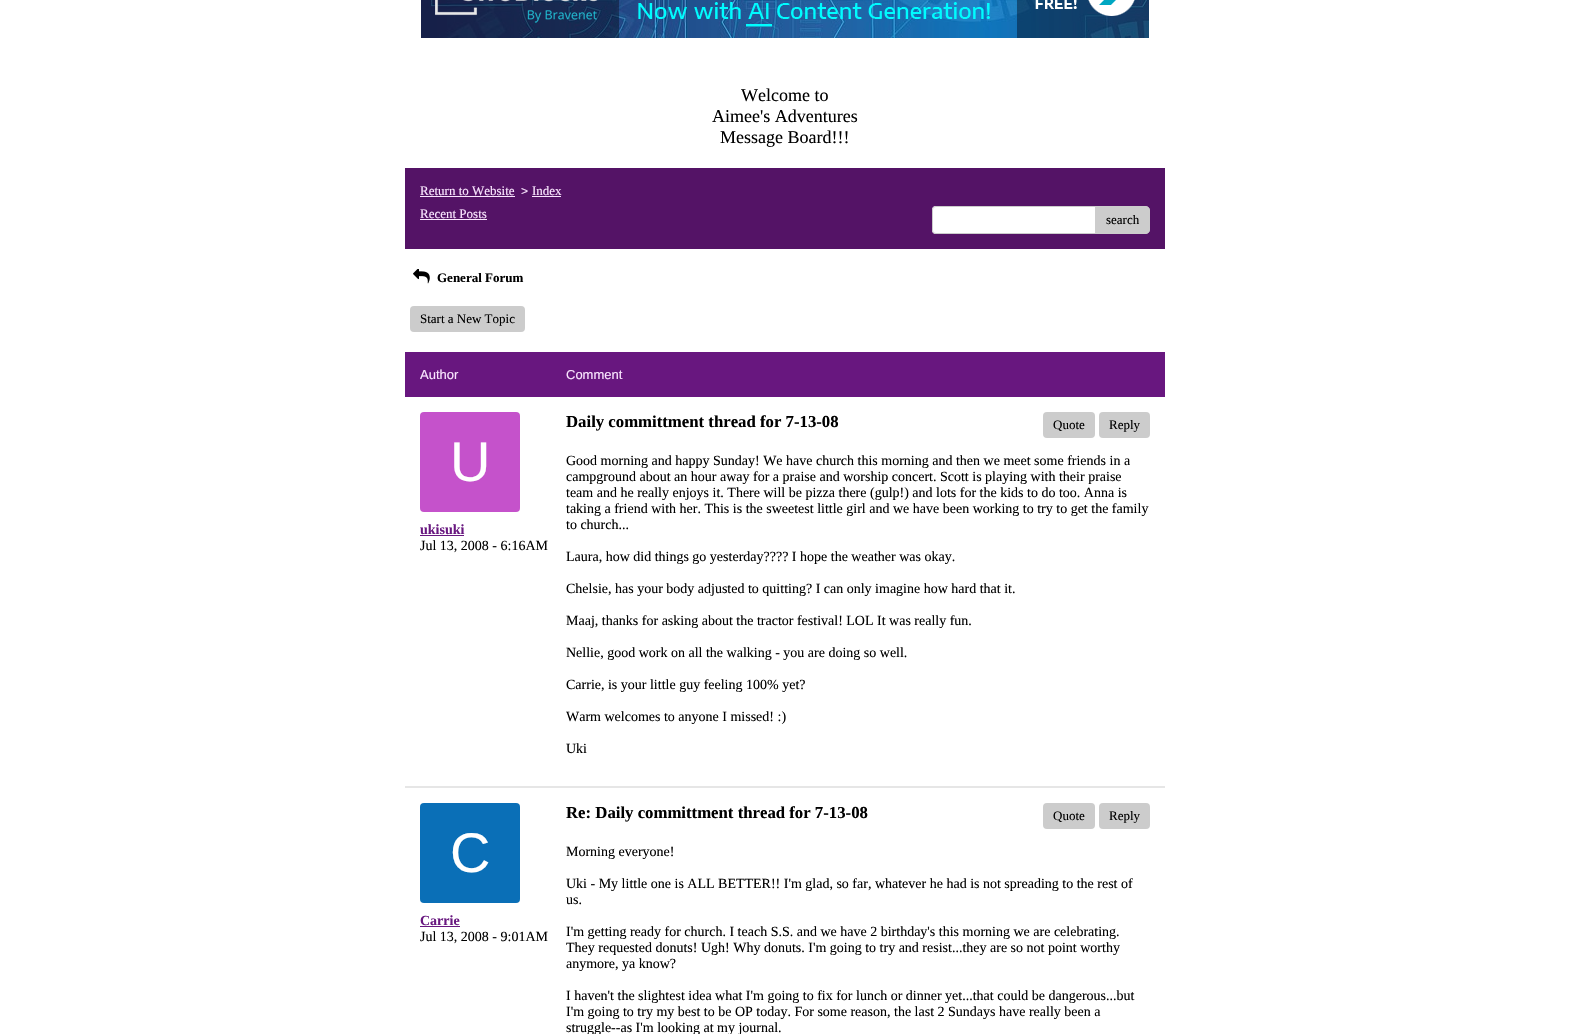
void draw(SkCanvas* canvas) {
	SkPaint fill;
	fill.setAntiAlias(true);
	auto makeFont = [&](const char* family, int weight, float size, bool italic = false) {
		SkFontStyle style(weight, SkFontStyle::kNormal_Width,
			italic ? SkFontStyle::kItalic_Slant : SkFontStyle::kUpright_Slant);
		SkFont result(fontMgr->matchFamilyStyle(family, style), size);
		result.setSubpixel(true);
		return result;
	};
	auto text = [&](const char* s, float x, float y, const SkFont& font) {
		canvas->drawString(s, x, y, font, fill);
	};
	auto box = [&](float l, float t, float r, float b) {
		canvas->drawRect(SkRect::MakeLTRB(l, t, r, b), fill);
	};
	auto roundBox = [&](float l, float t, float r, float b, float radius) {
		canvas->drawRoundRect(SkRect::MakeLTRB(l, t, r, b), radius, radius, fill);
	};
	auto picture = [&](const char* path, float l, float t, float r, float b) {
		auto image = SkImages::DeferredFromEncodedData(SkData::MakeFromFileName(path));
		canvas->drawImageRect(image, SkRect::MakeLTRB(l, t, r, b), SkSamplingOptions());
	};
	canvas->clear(0xFFFFFFFF);
	picture("image0.png", 421, 0, 1149, 38);
	fill.setColor(0xFF541366);
	box(405, 168, 1165, 249);
	fill.setColor(0xFFFAE6FF);
	box(420, 196, 515, 197);
	box(532, 196, 561, 197);
	box(420, 219, 487, 220);
	fill.setColor(0xFFFFFFFF);
	roundBox(932, 206, 1140, 234, 4);
	fill.setColor(0xFFCCCCCC);
	canvas->drawPath(SkPathBuilder(SkPathFillType::kEvenOdd).moveTo(936, 206).lineTo(1136, 206).cubicTo(1138, 206, 1140, 208, 1140, 210).lineTo(1140, 230).cubicTo(1140, 232, 1138, 234, 1136, 234).lineTo(936, 234).cubicTo(934, 234, 932, 232, 932, 230).lineTo(932, 210).cubicTo(932, 208, 934, 206, 936, 206).close().moveTo(936, 207).lineTo(1136, 207).cubicTo(1138, 207, 1140, 208, 1140, 210).lineTo(1140, 230).cubicTo(1140, 232, 1138, 233, 1136, 233).lineTo(936, 233).cubicTo(934, 233, 933, 232, 933, 230).lineTo(933, 210).cubicTo(933, 208, 934, 207, 936, 207).close().detach(), fill);
	canvas->drawPath(SkPathBuilder().moveTo(1095.5f, 206.5f).lineTo(1146, 206.5f).cubicTo(1148, 206.5f, 1149.5f, 208, 1149.5f, 210).lineTo(1149.5f, 230).cubicTo(1149.5f, 232, 1148, 233.5f, 1146, 233.5f).lineTo(1095.5f, 233.5f).close().detach(), fill);
	fill.setStyle(SkPaint::kStroke_Style);
	fill.setStrokeWidth(1);
	canvas->drawPath(SkPathBuilder().moveTo(1095.5f, 206.5f).lineTo(1146, 206.5f).cubicTo(1148, 206.5f, 1149.5f, 208, 1149.5f, 210).lineTo(1149.5f, 230).cubicTo(1149.5f, 232, 1148, 233.5f, 1146, 233.5f).lineTo(1095.5f, 233.5f).close().detach(), fill);
	picture("image1.png", 413, 269, 430, 284);
	fill.setStyle(SkPaint::kFill_Style);
	roundBox(410, 306, 525, 332, 4);
	fill.setColor(0xFF68177F);
	box(405, 352, 1165, 397);
	fill.setColor(0xFFE6E6E6);
	box(405, 786, 1165, 788);
	fill.setColor(0xFFC552CB);
	roundBox(420, 412, 520, 512, 4);
	fill.setColor(0xFF68177F);
	box(420, 535, 464, 536);
	fill.setColor(0xFFCCCCCC);
	roundBox(1043, 412, 1095, 438, 4);
	roundBox(1099, 412, 1150, 438, 4);
	fill.setColor(0xFF0A6FB7);
	roundBox(420, 803, 520, 903, 4);
	fill.setColor(0xFF68177F);
	box(420, 926, 460, 927);
	fill.setColor(0xFFCCCCCC);
	roundBox(1043, 803, 1095, 829, 4);
	roundBox(1099, 803, 1150, 829, 4);
	auto font1 = makeFont("Liberation Serif", 400, 18);
	fill.setColor(0xFF000000);
	text("Welcome to", 741, 101, font1);
	text("Aimee's Adventures", 712, 122, font1);
	text("Message Board!!!", 720, 143, font1);
	auto font2 = makeFont("Liberation Serif", 400, 13);
	fill.setColor(0xFFFAE6FF);
	text("Return to Website", 420, 195, font2);
	auto font3 = makeFont("Liberation Sans", 400, 12);
	text(">", 521, 195, font3);
	text("Index", 532, 195, font2);
	text("Recent Posts", 420, 218, font2);
	fill.setColor(0xFF000000);
	text("search", 1106, 224, font2);
	auto font4 = makeFont("Liberation Serif", 700, 13);
	text("General Forum", 437, 282, font4);
	text("Start a New Topic", 420, 323, font2);
	auto font5 = makeFont("Liberation Sans", 400, 13);
	fill.setColor(0xFFFAE6FF);
	text("Author", 420, 379, font5);
	text("Comment", 566, 379, font5);
	auto font6 = makeFont("Liberation Sans", 400, 56);
	fill.setColor(0xFFFFFFFF);
	text("U", 450, 481, font6);
	auto font7 = makeFont("Liberation Serif", 700, 14);
	fill.setColor(0xFF68177F);
	text("ukisuki", 420, 534, font7);
	auto font8 = makeFont("Liberation Serif", 400, 14);
	fill.setColor(0xFF000000);
	text("Jul 13, 2008 - 6:16AM", 420, 550, font8);
	auto font9 = makeFont("Liberation Serif", 700, 16.75f);
	text("Daily committment thread for 7-13-08", 566, 427, font9);
	text("Quote", 1053, 429, font2);
	text("Reply", 1109, 429, font2);
	text("Good morning and happy Sunday! We have church this morning and then we meet some friends in a", 566, 465, font8);
	text("campground about an hour away for a praise and worship concert. Scott is playing with their praise", 566, 481, font8);
	text("team and he really enjoys it. There will be pizza there (gulp!) and lots for the kids to do too. Anna is", 566, 497, font8);
	text("taking a friend with her. This is the sweetest little girl and we have been working to try to get the family", 566, 513, font8);
	text("to church...", 566, 529, font8);
	text("Laura, how did things go yesterday?\077?\077 I hope the weather was okay.", 566, 561, font8);
	text("Chelsie, has your body adjusted to quitting? I can only imagine how hard that it.", 566, 593, font8);
	text("Maaj, thanks for asking about the tractor festival! LOL It was really fun.", 566, 625, font8);
	text("Nellie, good work on all the walking - you are doing so well.", 566, 657, font8);
	text("Carrie, is your little guy feeling 100% yet?", 566, 689, font8);
	text("Warm welcomes to anyone I missed! :)", 566, 721, font8);
	text("Uki", 566, 753, font8);
	fill.setColor(0xFFFFFFFF);
	text("C", 450, 872, font6);
	fill.setColor(0xFF68177F);
	text("Carrie", 420, 925, font7);
	fill.setColor(0xFF000000);
	text("Jul 13, 2008 - 9:01AM", 420, 941, font8);
	text("Re: Daily committment thread for 7-13-08", 566, 818, font9);
	text("Quote", 1053, 820, font2);
	text("Reply", 1109, 820, font2);
	text("Morning everyone!", 566, 856, font8);
	text("Uki - My little one is ALL BETTER!! I'm glad, so far, whatever he had is not spreading to the rest of", 566, 888, font8);
	text("us.", 566, 904, font8);
	text("I'm getting ready for church. I teach S.S. and we have 2 birthday's this morning we are celebrating.", 566, 936, font8);
	text("They requested donuts! Ugh! Why donuts. I'm going to try and resist...they are so not point worthy", 566, 952, font8);
	text("anymore, ya know?", 566, 968, font8);
	text("I haven't the slightest idea what I'm going to fix for lunch or dinner yet...that could be dangerous...but", 566, 1000, font8);
	text("I'm going to try my best to be OP today. For some reason, the last 2 Sundays have really been a", 566, 1016, font8);
	text("struggle--as I'm looking at my journal.", 566, 1032, font8);
}
